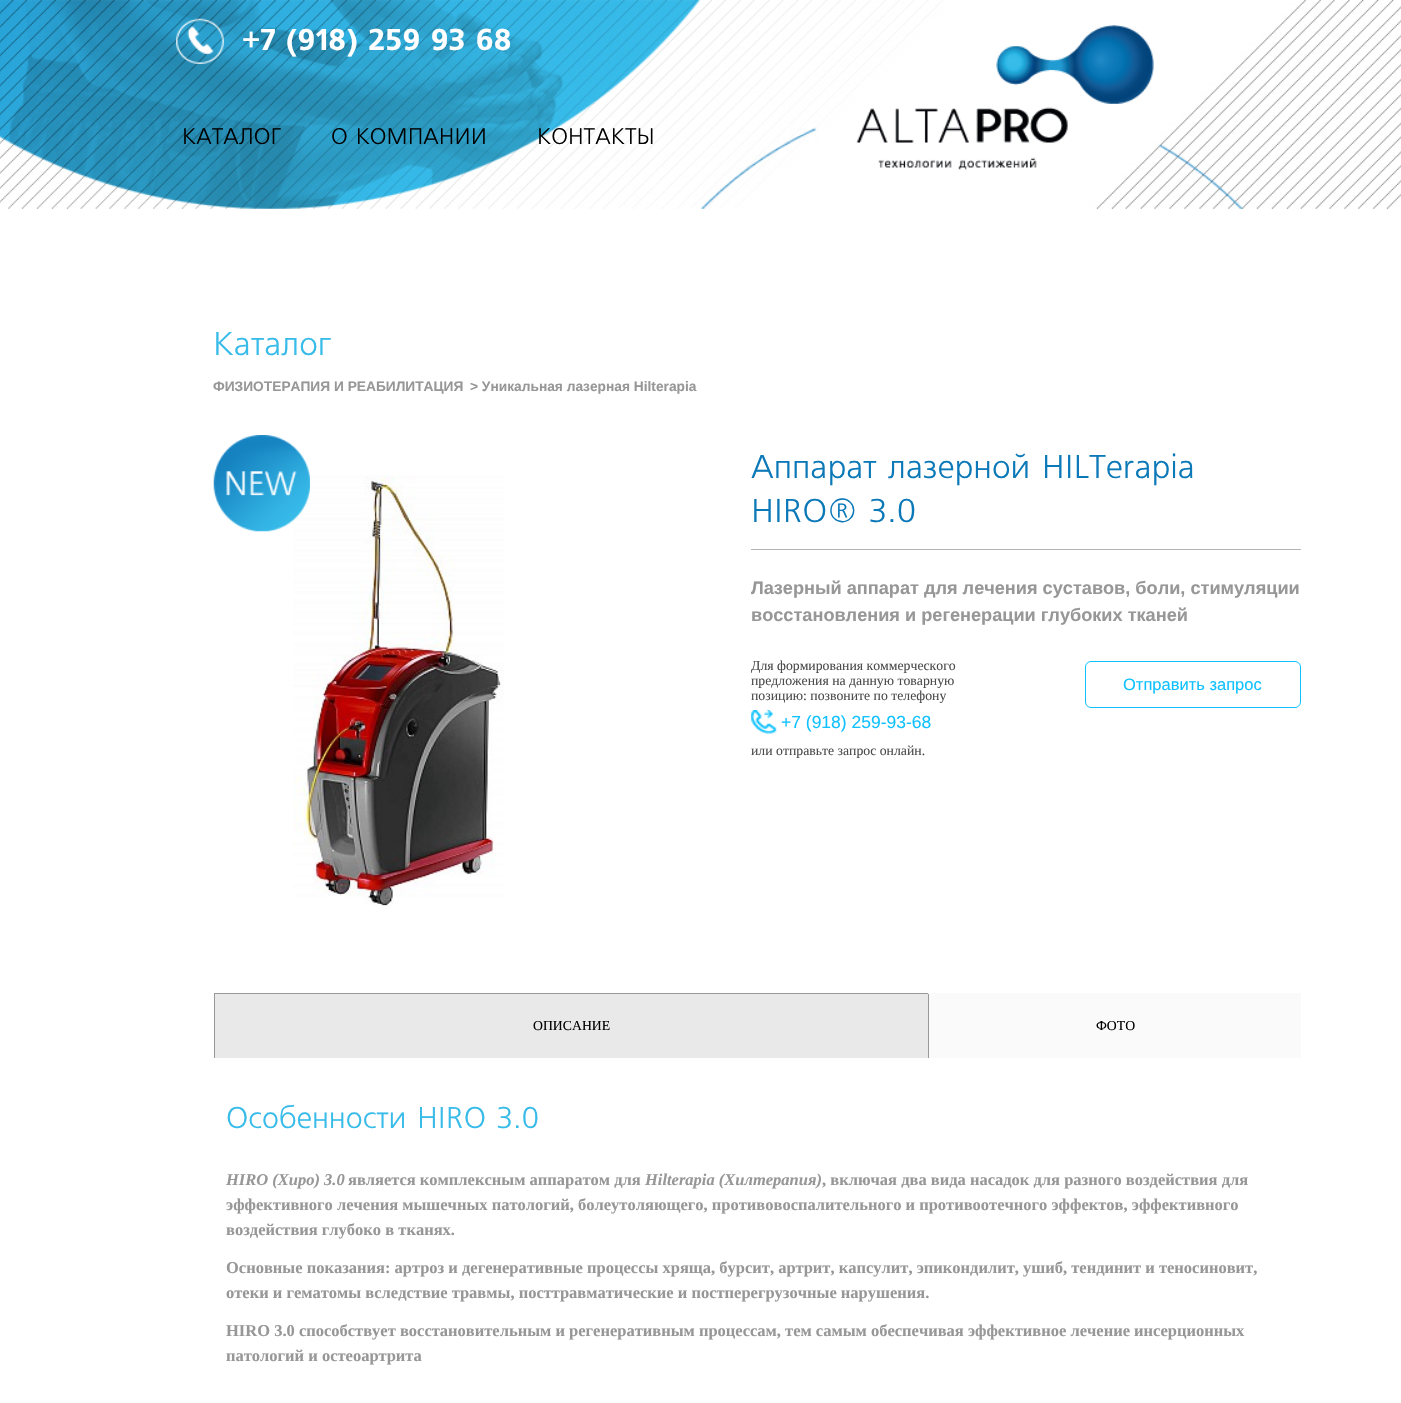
void draw(SkCanvas* canvas) {
	SkPaint fill;
	fill.setAntiAlias(true);
	auto makeFont = [&](const char* family, int weight, float size, bool italic = false) {
		SkFontStyle style(weight, SkFontStyle::kNormal_Width,
			italic ? SkFontStyle::kItalic_Slant : SkFontStyle::kUpright_Slant);
		SkFont result(fontMgr->matchFamilyStyle(family, style), size);
		result.setSubpixel(true);
		return result;
	};
	auto text = [&](const char* s, float x, float y, const SkFont& font) {
		canvas->drawString(s, x, y, font, fill);
	};
	auto box = [&](float l, float t, float r, float b) {
		canvas->drawRect(SkRect::MakeLTRB(l, t, r, b), fill);
	};
	auto picture = [&](const char* path, float l, float t, float r, float b) {
		auto image = SkImages::DeferredFromEncodedData(SkData::MakeFromFileName(path));
		canvas->drawImageRect(image, SkRect::MakeLTRB(l, t, r, b), SkSamplingOptions());
	};
	canvas->clear(0xFFFFFFFF);
	picture("image0.png", 0, 0, 1401, 209);
	picture("image1.png", 176, 18, 224, 64);
	picture("image2.png", 856, 25, 1154, 170);
	picture("image4.png", 293, 475, 504, 906);
	picture("image3.png", 213, 435, 310, 532);
	fill.setColor(0xFFB1B3B4);
	box(751, 549, 1301, 550);
	picture("image5.png", 751, 710, 777, 734);
	fill.setStyle(SkPaint::kStroke_Style);
	fill.setStrokeWidth(1);
	fill.setColor(0xFF0FC1FF);
	canvas->drawRoundRect(SkRect::MakeLTRB(1085.5f, 661.5f, 1300.5f, 707.5f), 5.5f, 5.5f, fill);
	fill.setStyle(SkPaint::kFill_Style);
	fill.setColor(0xFFE9E9E9);
	box(215, 994, 928, 1058);
	fill.setColor(0xFF999999);
	box(214, 993, 930, 994);
	box(214, 993, 215, 1058);
	fill.setColor(0xFFFAFAFA);
	box(928, 993, 1301, 1058);
	fill.setColor(0xFF999999);
	box(928, 994, 929, 1058);
	auto font1 = makeFont("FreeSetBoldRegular", 700, 30);
	fill.setColor(0xFFFFFFFF);
	text("+7 (918) 259 93 68", 242, 50, font1);
	auto font2 = makeFont("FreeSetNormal", 400, 22.5f);
	fill.setColor(0xFF000000);
	text("КАТАЛОГ", 182, 144, font2);
	text("О КОМПАНИИ", 331, 144, font2);
	text("КОНТАКТЫ", 537, 144, font2);
	auto font3 = makeFont("FreeSetNormal", 400, 33);
	fill.setColor(0xFF37BBE9);
	text("Каталог", 213, 355, font3);
	auto font4 = makeFont("Liberation Sans", 700, 13.75f);
	fill.setColor(0xFF979797);
	text("ФИЗИОТЕРАПИЯ И РЕАБИЛИТАЦИЯ", 213, 391, font4);
	text("˃ Уникальная лазерная Hilterapia", 470, 391, font4);
	fill.setColor(0xFF0B78B8);
	text("Аппарат лазерной HILТerapia", 751, 478, font3);
	text("HIRO® 3.0", 751, 522, font3);
	auto font5 = makeFont("Liberation Sans", 700, 18.15f);
	fill.setColor(0xFF979797);
	text("Лазерный аппарат для лечения суставов, боли, стимуляции", 751, 594, font5);
	text("восстановления и регенерации глубоких тканей", 751, 621, font5);
	auto font6 = makeFont("Liberation Serif", 400, 13.75f);
	fill.setColor(0xFF4B4B4B);
	text("Для формирования коммерческого", 751, 670, font6);
	text("предложения на данную товарную", 751, 685, font6);
	text("позицию: позвоните по телефону", 751, 700, font6);
	auto font7 = makeFont("Liberation Sans", 400, 17.5f);
	fill.setColor(0xFF0FC1FF);
	text("+7 (918) 259-93-68", 781, 728, font7);
	fill.setColor(0xFF4B4B4B);
	text("или отправьте запрос онлайн.", 751, 755, font6);
	auto font8 = makeFont("Liberation Sans", 400, 16.5f);
	fill.setColor(0xFF0FC1FF);
	text("Отправить запрос", 1123, 690, font8);
	fill.setColor(0xFF000000);
	text("ОПИСАНИЕ", 533, 1030, font6);
	text("ФОТО", 1096, 1030, font6);
	auto font9 = makeFont("FreeSetNormal", 400, 30);
	fill.setColor(0xFF37BBE9);
	text("Особенности HIRO 3.0", 226, 1128, font9);
	auto font10 = makeFont("Liberation Serif", 700, 16.5f, true);
	fill.setColor(0xFF979797);
	text("HIRO (Хиро) 3.0", 226, 1185, font10);
	auto font11 = makeFont("Liberation Serif", 700, 16.5f);
	text("является комплексным аппаратом для", 348, 1185, font11);
	text("Hilterapia (Хилтерапия)", 645, 1185, font10);
	text(", включая два вида насадок для разного воздействия для", 822, 1185, font11);
	text("эффективного лечения мышечных патологий, болеутоляющего, противовоспалительного и противоотечного эффектов, эффективного", 226, 1210, font11);
	text("воздействия глубоко в тканях.", 226, 1235, font11);
	text("Основные показания: артроз и дегенеративные процессы хряща, бурсит, артрит, капсулит, эпикондилит, ушиб, тендинит и теносиновит,", 226, 1273, font11);
	text("отеки и гематомы вследствие травмы, посттравматические и постперегрузочные нарушения.", 226, 1298, font11);
	text("HIRO 3.0 способствует восстановительным и регенеративным процессам, тем самым обеспечивая эффективное лечение инсерционных", 226, 1336, font11);
	text("патологий и остеоартрита", 226, 1361, font11);
}
